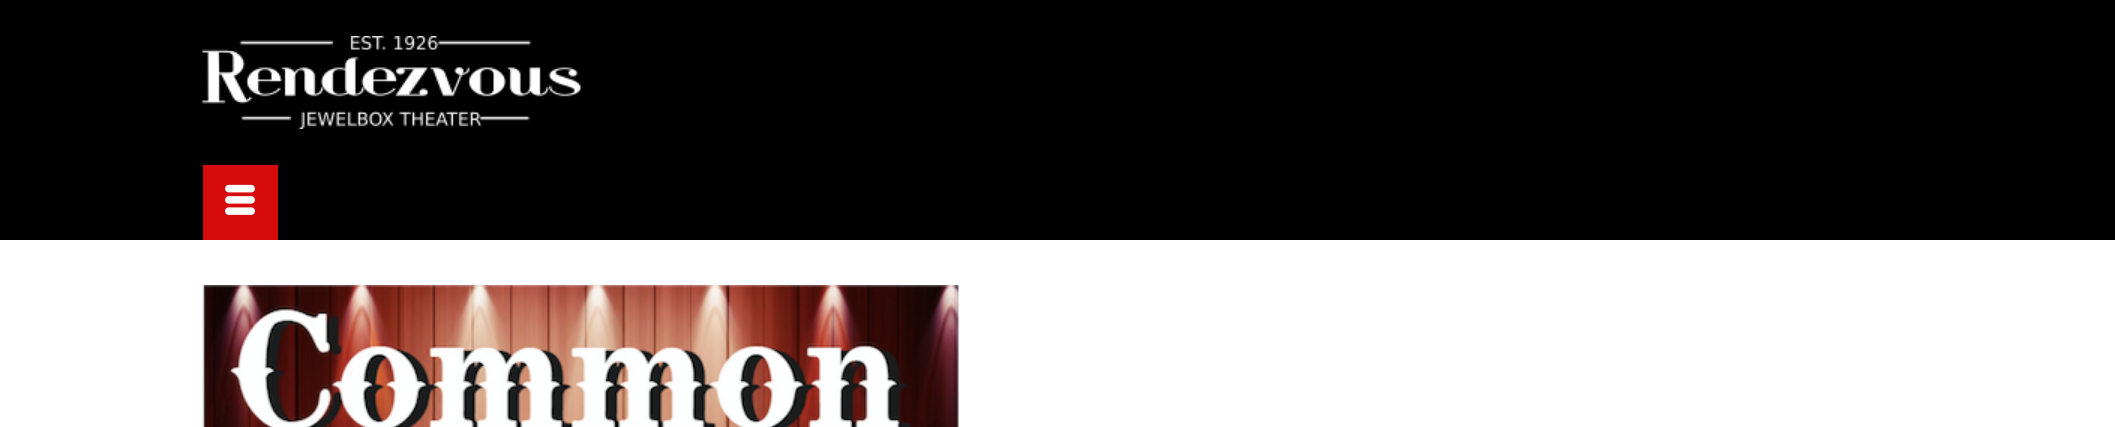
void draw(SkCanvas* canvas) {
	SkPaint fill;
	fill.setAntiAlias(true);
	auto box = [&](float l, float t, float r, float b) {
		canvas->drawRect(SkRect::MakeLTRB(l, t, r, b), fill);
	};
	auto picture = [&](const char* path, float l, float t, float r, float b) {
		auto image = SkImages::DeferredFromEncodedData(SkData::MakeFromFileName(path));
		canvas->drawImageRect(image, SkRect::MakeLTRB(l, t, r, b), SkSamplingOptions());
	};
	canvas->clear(0xFF000000);
	picture("image0.png", 202, 36, 581, 129);
	fill.setColor(0xFFD70B0B);
	box(203, 165, 278, 240);
	picture("image1.png", 225, 184, 255, 215);
	fill.setColor(0xFFFFFFFF);
	box(0, 240, 2115, 427);
	picture("image2.png", 202, 285, 959, 427);
}
